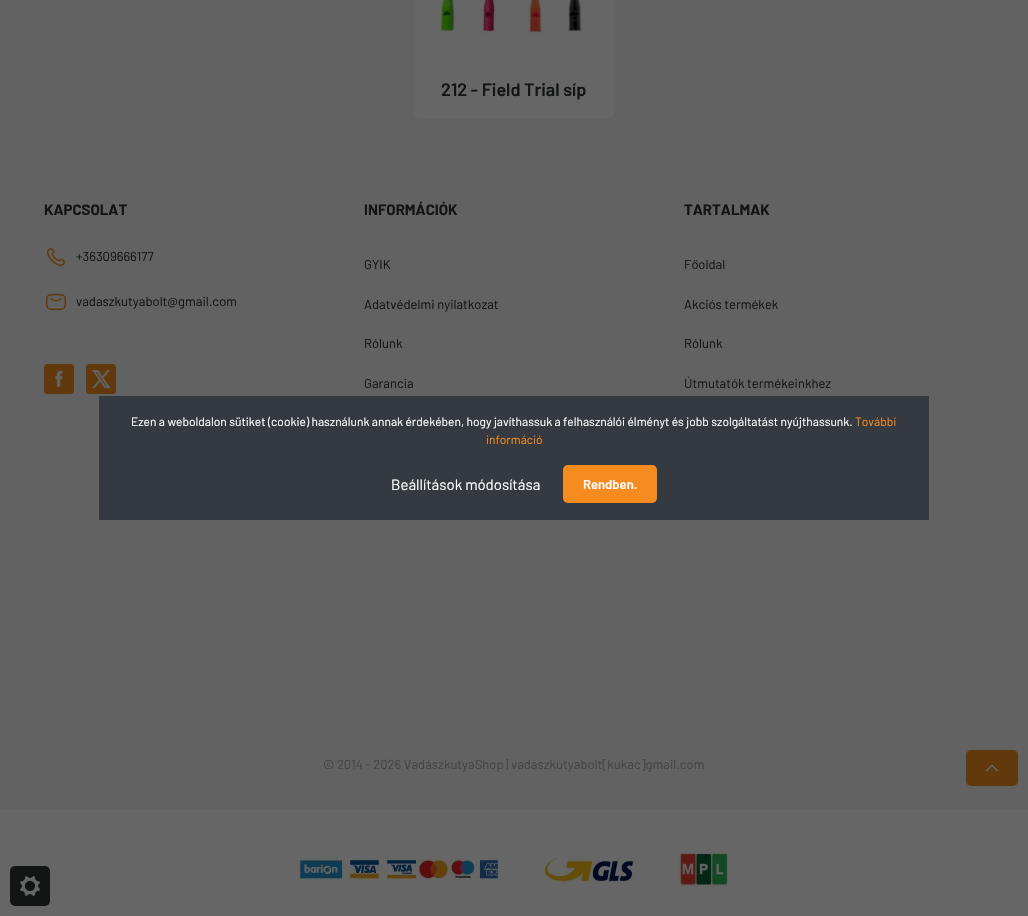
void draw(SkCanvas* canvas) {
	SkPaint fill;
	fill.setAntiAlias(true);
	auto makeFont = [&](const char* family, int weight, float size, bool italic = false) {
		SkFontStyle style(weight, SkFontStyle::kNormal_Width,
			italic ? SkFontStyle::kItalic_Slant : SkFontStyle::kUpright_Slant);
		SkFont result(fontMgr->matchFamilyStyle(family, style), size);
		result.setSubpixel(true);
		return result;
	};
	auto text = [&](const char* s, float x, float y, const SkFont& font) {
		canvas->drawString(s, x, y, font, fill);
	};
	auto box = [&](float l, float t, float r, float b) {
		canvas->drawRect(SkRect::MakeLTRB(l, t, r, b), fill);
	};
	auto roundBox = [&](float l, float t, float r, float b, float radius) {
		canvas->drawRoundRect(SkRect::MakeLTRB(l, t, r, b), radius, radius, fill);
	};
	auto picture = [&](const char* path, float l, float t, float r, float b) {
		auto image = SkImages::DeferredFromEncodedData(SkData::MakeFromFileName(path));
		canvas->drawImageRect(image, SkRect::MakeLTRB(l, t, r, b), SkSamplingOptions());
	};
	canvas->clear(0xFF626262);
	fill.setColor(0xFF666666);
	roundBox(414, -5, 614, 118, 5);
	picture("image0.png", 436, 0, 582, 37);
	picture("image1.png", 47, 248, 65, 266);
	fill.setStyle(SkPaint::kStroke_Style);
	fill.setStrokeWidth(1.5f);
	fill.setColor(0xFF62380D);
	canvas->drawRoundRect(SkRect::MakeLTRB(46.75f, 294.75f, 65.25f, 309.25f), 4.25f, 4.25f, fill);
	fill.setStrokeCap(SkPaint::kRound_Cap);
	fill.setStrokeJoin(SkPaint::kRound_Join);
	canvas->drawPath(SkPathBuilder().moveTo(51, 299).cubicTo(56.5f, 301.5f, 55.5f, 301.5f, 61, 299).detach(), fill);
	picture("image2.png", 44, 364, 74, 394);
	picture("image3.png", 86, 364, 116, 394);
	fill.setStyle(SkPaint::kFill_Style);
	fill.setColor(0xFF666666);
	box(0, 809, 1028, 916);
	picture("image4.png", 299, 859, 499, 880);
	picture("image5.png", 539, 856, 635, 884);
	picture("image6.png", 679, 852, 729, 892);
	fill.setColor(0xFF62380D);
	roundBox(966, 750, 1018, 786, 5);
	picture("image7.png", 986, 764, 998, 772);
	fill.setColor(0xFF343A40);
	box(99, 396, 929, 520);
	fill.setColor(0xFFF68B20);
	roundBox(563, 465, 657, 503, 5);
	fill.setColor(0xFF131414);
	roundBox(10, 866, 50, 906, 5);
	picture("image8.png", 20, 876, 40, 896);
	auto font1 = makeFont("Barlow", 600, 18);
	text("212 - Field Trial síp", 441, 96, font1);
	auto font2 = makeFont("Barlow", 700, 15);
	text("KAPCSOLAT", 44, 215, font2);
	auto font3 = makeFont("Barlow", 400, 13);
	text("+36309666177", 76, 261, font3);
	text("vadaszkutyabolt@gmail.com", 76, 306, font3);
	text("INFORMÁCIÓK", 364, 215, font2);
	text("GYIK", 364, 269, font3);
	text("Adatvédelmi nyilatkozat", 364, 309, font3);
	text("Rólunk", 364, 348, font3);
	text("Garancia", 364, 388, font3);
	text("TARTALMAK", 684, 215, font2);
	text("Főoldal", 684, 269, font3);
	text("Akciós termékek", 684, 309, font3);
	text("Rólunk", 684, 348, font3);
	text("Útmutatók termékeinkhez", 684, 388, font3);
	fill.setColor(0xFF434344);
	text("© 2014 - 2026 VadászkutyaShop | vadaszkutyabolt[kukac]gmail.com", 323, 769, font3);
	auto font4 = makeFont("Barlow", 400, 12);
	fill.setColor(0xFFFFFFFF);
	text("Ezen a weboldalon sütiket (cookie) használunk annak érdekében, hogy javíthassuk a felhasználói élményt és jobb szolgáltatást nyújthassunk.", 131, 426, font4);
	fill.setColor(0xFFF68B20);
	text("További", 855, 426, font4);
	text("információ", 486, 444, font4);
	auto font5 = makeFont("Barlow", 400, 15);
	fill.setColor(0xFFFFFFFF);
	text("Beállítások módosítása", 391, 490, font5);
	auto font6 = makeFont("Barlow", 600, 13);
	text("Rendben.", 583, 489, font6);
}
